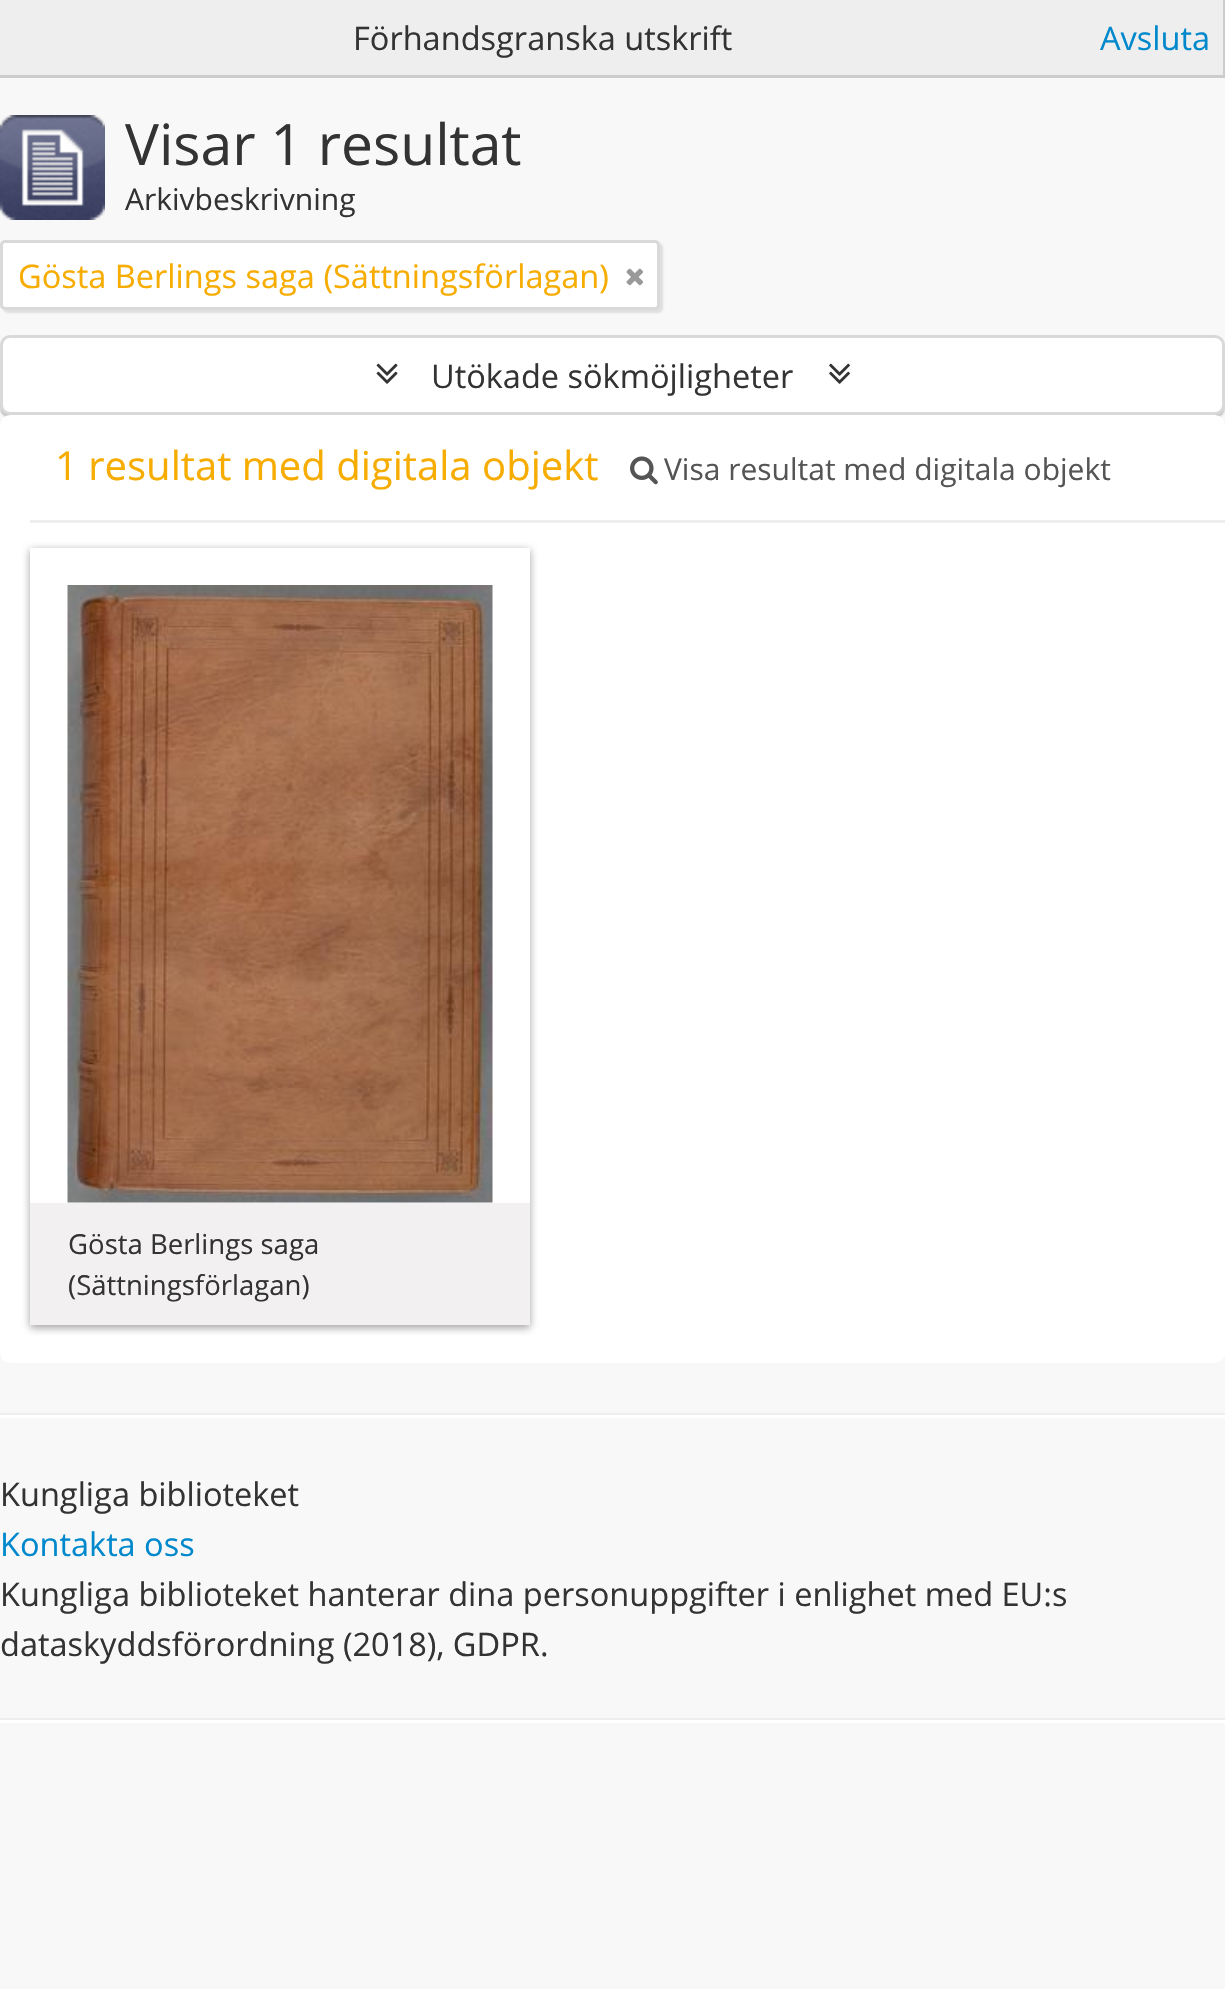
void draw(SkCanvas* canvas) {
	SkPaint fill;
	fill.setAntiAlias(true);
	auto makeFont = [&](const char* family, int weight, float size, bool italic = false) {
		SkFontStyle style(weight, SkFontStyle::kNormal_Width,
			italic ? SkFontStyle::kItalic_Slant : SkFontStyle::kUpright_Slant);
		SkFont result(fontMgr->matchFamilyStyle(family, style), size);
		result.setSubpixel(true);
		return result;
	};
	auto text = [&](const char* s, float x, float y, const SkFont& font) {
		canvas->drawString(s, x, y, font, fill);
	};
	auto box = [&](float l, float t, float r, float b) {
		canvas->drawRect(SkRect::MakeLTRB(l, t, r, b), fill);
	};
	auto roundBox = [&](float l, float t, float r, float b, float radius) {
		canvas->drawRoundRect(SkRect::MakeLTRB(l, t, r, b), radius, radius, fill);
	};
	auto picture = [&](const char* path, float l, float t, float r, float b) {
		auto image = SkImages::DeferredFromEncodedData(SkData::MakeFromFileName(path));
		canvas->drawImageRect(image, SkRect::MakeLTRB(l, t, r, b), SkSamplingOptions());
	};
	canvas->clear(0xFFF8F8F8);
	fill.setColor(0xFFEEEEEE);
	box(0, 0, 1223, 75);
	fill.setColor(0xFFCCCCCC);
	box(1223, 0, 1225, 78);
	box(0, 75, 1225, 78);
	picture("image0.png", 0, 115, 105, 220);
	fill.setColor(0x1A000000);
	fill.setMaskFilter(SkMaskFilter::MakeBlur(kNormal_SkBlurStyle, 1));
	canvas->drawRoundRect(SkRect::MakeLTRB(3, 243, 663, 313), 5, 5, fill);
	fill.setMaskFilter(nullptr);
	fill.setColor(0xFFFFFFFF);
	canvas->drawRoundRect(SkRect::MakeLTRB(1.5f, 241.5f, 658.5f, 308.5f), 3.5f, 3.5f, fill);
	fill.setStyle(SkPaint::kStroke_Style);
	fill.setStrokeWidth(3);
	fill.setColor(0xFFD9D9D9);
	canvas->drawRoundRect(SkRect::MakeLTRB(1.5f, 241.5f, 658.5f, 308.5f), 3.5f, 3.5f, fill);
	picture("image1.png", 626, 268, 643, 286);
	fill.setStyle(SkPaint::kFill_Style);
	fill.setColor(0x33000000);
	fill.setMaskFilter(SkMaskFilter::MakeBlur(kNormal_SkBlurStyle, 1));
	canvas->drawRoundRect(SkRect::MakeLTRB(0, 338, 1225, 418), 10, 10, fill);
	fill.setMaskFilter(nullptr);
	fill.setColor(0xFFFFFFFF);
	canvas->drawRoundRect(SkRect::MakeLTRB(1.5f, 336.5f, 1223.5f, 413.5f), 8.5f, 8.5f, fill);
	fill.setStyle(SkPaint::kStroke_Style);
	fill.setColor(0xFFD9D9D9);
	canvas->drawRoundRect(SkRect::MakeLTRB(1.5f, 336.5f, 1223.5f, 413.5f), 8.5f, 8.5f, fill);
	picture("image2.png", 376, 363, 398, 384);
	picture("image3.png", 829, 363, 850, 384);
	fill.setStyle(SkPaint::kFill_Style);
	fill.setColor(0xFFFFFFFF);
	roundBox(0, 415, 1225, 1363, 10);
	fill.setColor(0xFFEEEEEE);
	box(30, 520, 1225, 523);
	picture("image4.png", 630, 456, 658, 485);
	canvas->save();
	canvas->clipPath(SkPathBuilder(SkPathFillType::kEvenOdd).moveTo(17, 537).lineTo(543, 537).lineTo(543, 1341).lineTo(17, 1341).close().moveTo(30, 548).lineTo(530, 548).lineTo(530, 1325).lineTo(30, 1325).close().detach(), true);
	fill.setColor(0x66191919);
	fill.setMaskFilter(SkMaskFilter::MakeBlur(kNormal_SkBlurStyle, 4));
	canvas->drawRect(SkRect::MakeLTRB(30, 550, 530, 1328), fill);
	fill.setMaskFilter(nullptr);
	canvas->restore();
	picture("image5.png", 67, 585, 493, 1203);
	fill.setColor(0xFFF2F0F0);
	box(30, 1203, 530, 1325);
	fill.setColor(0xFFEEEEEE);
	box(0, 1413, 1225, 1415);
	fill.setColor(0xFFFFFFFF);
	box(0, 1415, 1225, 1418);
	fill.setColor(0xFFEEEEEE);
	box(0, 1718, 1225, 1720);
	fill.setColor(0xFFFFFFFF);
	box(0, 1720, 1225, 1723);
	auto font1 = makeFont("Open Sans", 400, 32.5f);
	fill.setColor(0xFF333333);
	text("Förhandsgranska utskrift", 353, 50, font1);
	fill.setColor(0xFF0088CC);
	text("Avsluta", 1100, 50, font1);
	auto font2 = makeFont("Open Sans", 400, 57);
	fill.setColor(0xFF333333);
	text("Visar 1 resultat", 125, 165, font2);
	auto font3 = makeFont("Open Sans", 400, 30);
	text("Arkivbeskrivning", 125, 210, font3);
	fill.setColor(0xFFF6AC00);
	text("Gösta Berlings saga (Sättningsförlagan)", 18, 288, font1);
	fill.setColor(0xFF333333);
	text("Utökade sökmöjligheter", 431, 388, font1);
	auto font4 = makeFont("Open Sans", 400, 40);
	fill.setColor(0xFFF6AC00);
	text("1 resultat med digitala objekt", 55, 480, font4);
	fill.setColor(0xFF555555);
	text("Visa resultat med digitala objekt", 664, 480, font3);
	auto font5 = makeFont("Open Sans", 400, 27.5f);
	fill.setColor(0xFF333333);
	text("Gösta Berlings saga", 68, 1254, font5);
	text("(Sättningsförlagan)", 68, 1295, font5);
	text("Kungliga biblioteket", 0, 1506, font1);
	fill.setColor(0xFF0088CC);
	text("Kontakta oss", 0, 1556, font1);
	fill.setColor(0xFF333333);
	text("Kungliga biblioteket hanterar dina personuppgifter i enlighet med EU:s", 0, 1606, font1);
	text("dataskyddsförordning (2018), GDPR.", 0, 1656, font1);
}
